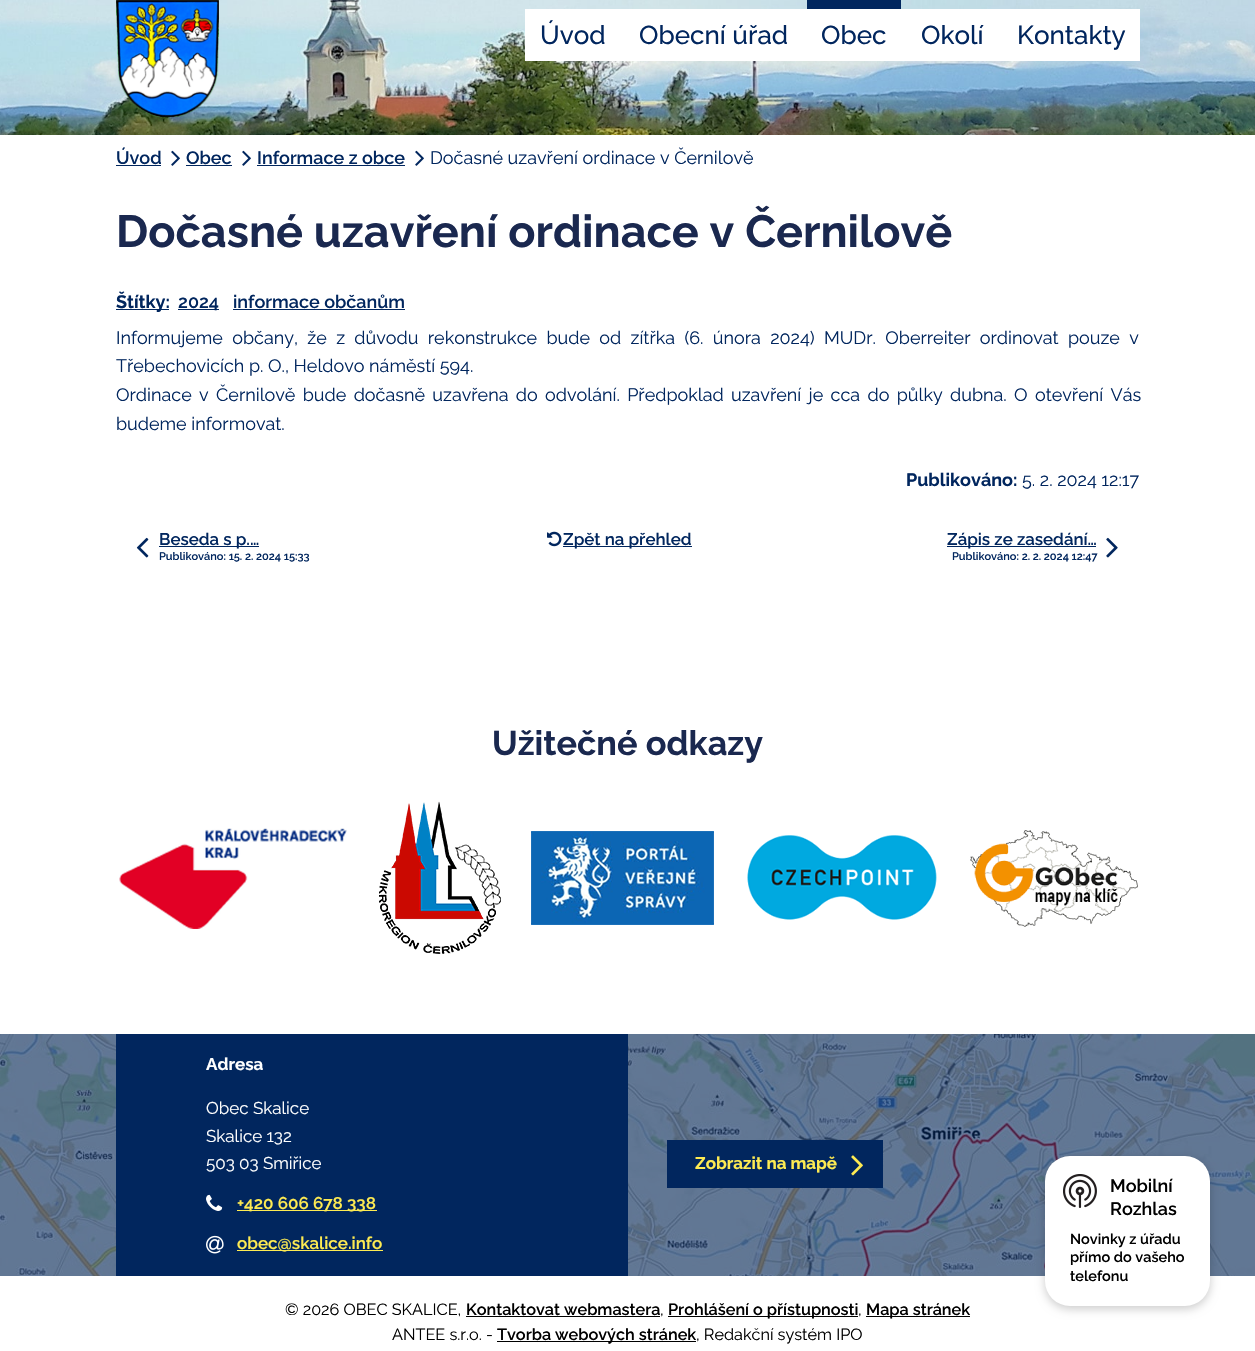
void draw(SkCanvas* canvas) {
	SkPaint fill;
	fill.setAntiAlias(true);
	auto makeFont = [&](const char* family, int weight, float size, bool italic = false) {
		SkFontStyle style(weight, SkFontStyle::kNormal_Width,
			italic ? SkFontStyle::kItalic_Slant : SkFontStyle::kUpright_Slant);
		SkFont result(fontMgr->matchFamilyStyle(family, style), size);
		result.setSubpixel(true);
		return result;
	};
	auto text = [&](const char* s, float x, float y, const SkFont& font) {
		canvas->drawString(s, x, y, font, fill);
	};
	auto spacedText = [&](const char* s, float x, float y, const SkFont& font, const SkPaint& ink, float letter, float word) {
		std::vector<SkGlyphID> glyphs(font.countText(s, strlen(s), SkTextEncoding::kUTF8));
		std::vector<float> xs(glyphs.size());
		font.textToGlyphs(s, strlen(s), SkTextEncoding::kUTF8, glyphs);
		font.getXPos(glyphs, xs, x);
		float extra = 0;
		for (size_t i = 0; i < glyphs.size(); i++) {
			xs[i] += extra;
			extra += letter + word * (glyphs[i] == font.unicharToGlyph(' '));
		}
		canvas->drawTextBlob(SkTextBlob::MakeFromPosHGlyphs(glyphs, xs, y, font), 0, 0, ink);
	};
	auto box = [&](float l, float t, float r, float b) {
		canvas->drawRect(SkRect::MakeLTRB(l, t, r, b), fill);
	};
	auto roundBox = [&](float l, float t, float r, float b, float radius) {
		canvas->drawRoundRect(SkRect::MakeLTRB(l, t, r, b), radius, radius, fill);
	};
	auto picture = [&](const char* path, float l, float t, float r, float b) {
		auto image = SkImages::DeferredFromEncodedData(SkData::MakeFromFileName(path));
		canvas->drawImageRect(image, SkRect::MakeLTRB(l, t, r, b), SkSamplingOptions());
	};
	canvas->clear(0xFFFFFFFF);
	picture("image0.png", 0, 0, 1255, 135);
	picture("image1.png", 116, 0, 219, 117);
	fill.setColor(0xFFFFFFFF);
	box(525, 9, 1140, 61);
	fill.setColor(0xFF01265E);
	box(807, 0, 901, 9);
	box(116, 165, 161, 166);
	picture("image2.png", 171, 150, 180, 166);
	box(186, 165, 232, 166);
	picture("image2.png", 242, 150, 251, 166);
	box(257, 165, 405, 166);
	picture("image2.png", 415, 150, 424, 166);
	box(116, 309, 169, 310);
	box(178, 309, 219, 310);
	box(233, 309, 405, 310);
	picture("image3.png", 136, 537, 149, 558);
	box(159, 546, 259, 547);
	picture("image4.png", 547, 531, 562, 547);
	box(563, 546, 692, 547);
	box(947, 546, 1096, 547);
	picture("image5.png", 1106, 537, 1118, 558);
	picture("image12.png", 0, 1034, 1255, 1276);
	fill.setColor(0x33000000);
	fill.setMaskFilter(SkMaskFilter::MakeBlur(kNormal_SkBlurStyle, 5));
	canvas->drawRoundRect(SkRect::MakeLTRB(1045, 1159, 1210, 1309), 25, 25, fill);
	fill.setMaskFilter(nullptr);
	fill.setColor(0xFFFFFFFF);
	roundBox(1045, 1156, 1210, 1306, 25);
	picture("image6.png", 1063, 1174, 1097, 1208);
	picture("image7.png", 119, 828, 347, 929);
	picture("image8.png", 379, 801, 501, 954);
	picture("image9.png", 531, 831, 714, 925);
	picture("image10.png", 747, 835, 937, 920);
	picture("image11.png", 970, 830, 1138, 927);
	fill.setColor(0xFF01265E);
	box(116, 1034, 628, 1276);
	picture("image13.png", 206, 1194, 223, 1211);
	fill.setColor(0xFFFEEB52);
	box(237, 1210, 377, 1211);
	picture("image14.png", 206, 1235, 224, 1254);
	box(237, 1250, 383, 1251);
	fill.setColor(0xFF01265E);
	box(667, 1140, 883, 1188);
	picture("image15.png", 851, 1155, 863, 1176);
	fill.setColor(0xFF000000);
	box(466, 1316, 660, 1317);
	box(668, 1316, 858, 1317);
	box(866, 1316, 970, 1317);
	box(497, 1341, 696, 1342);
	auto font1 = makeFont("Raleway", 500, 26);
	fill.setColor(0xFF01265E);
	text("Úvod", 540, 44, font1);
	text("Obecní úřad", 639, 44, font1);
	text("Obec", 821, 44, font1);
	text("Okolí", 921, 44, font1);
	text("Kontakty", 1017, 44, font1);
	auto font2 = makeFont("Raleway", 600, 18);
	text("Úvod", 116, 164, font2);
	text("Obec", 186, 164, font2);
	text("Informace z obce", 257, 164, font2);
	auto font3 = makeFont("Raleway", 400, 18);
	text("Dočasné uzavření ordinace v Černilově", 430, 164, font3);
	auto font4 = makeFont("Raleway", 700, 45);
	fill.setColor(0xFF1A284F);
	text("Dočasné uzavření ordinace v Černilově", 116, 247, font4);
	auto font5 = makeFont("Raleway", 700, 18);
	fill.setColor(0xFF01265E);
	text("Štítky:", 116, 308, font5);
	text("2024", 178, 308, font2);
	text("informace občanům", 233, 308, font2);
	spacedText("Informujeme občany, že z důvodu rekonstrukce bude od zítřka (6. února 2024) MUDr. Oberreiter ordinovat pouze v", 116, 344, font3, fill, 0, 4.75f);
	text("Třebechovicích p. O., Heldovo náměstí 594.", 116, 372, font3);
	spacedText("Ordinace v Černilově bude dočasně uzavřena do odvolání. Předpoklad uzavření je cca do půlky dubna. O otevření Vás", 116, 401, font3, fill, 0, 2.75f);
	text("budeme informovat.", 116, 430, font3);
	text("Publikováno:", 906, 486, font5);
	text("5. 2. 2024 12:17", 1022, 486, font3);
	auto font6 = makeFont("Raleway", 600, 16.9f);
	text("Beseda s p.…", 159, 545, font6);
	auto font7 = makeFont("Raleway", 600, 11);
	text("Publikováno: 15. 2. 2024 15:33", 159, 560, font7);
	text("Zpět na přehled", 563, 545, font6);
	text("Zápis ze zasedání…", 947, 545, font6);
	text("Publikováno: 2. 2. 2024 12:47", 952, 560, font7);
	fill.setColor(0xFF000000);
	text("Mobilní", 1110, 1192, font2);
	text("Rozhlas", 1110, 1215, font2);
	auto font8 = makeFont("Raleway", 600, 14.5f);
	text("Novinky z úřadu", 1070, 1244, font8);
	text("přímo do vašeho", 1070, 1262, font8);
	text("telefonu", 1070, 1281, font8);
	auto font9 = makeFont("Raleway", 700, 34.25f);
	fill.setColor(0xFF1A284F);
	text("Užitečné odkazy", 492, 755, font9);
	auto font10 = makeFont("Raleway", 700, 17);
	fill.setColor(0xFFFFFFFF);
	text("Adresa", 206, 1070, font10);
	auto font11 = makeFont("Raleway", 400, 17);
	text("Obec Skalice", 206, 1114, font11);
	text("Skalice 132", 206, 1142, font11);
	text("503 03 Smiřice", 206, 1169, font11);
	auto font12 = makeFont("Raleway", 600, 17);
	fill.setColor(0xFFFEEB52);
	text("+420 606 678 338", 237, 1209, font12);
	text("obec@skalice.info", 237, 1249, font12);
	text("Zobrazit na mapě", 695, 1169, font10);
	auto font13 = makeFont("Raleway", 400, 16.25f);
	fill.setColor(0xFF000000);
	text("© 2026 OBEC SKALICE,", 285, 1315, font13);
	auto font14 = makeFont("Raleway", 600, 16.25f);
	text("Kontaktovat webmastera", 466, 1315, font14);
	text(",", 660, 1315, font13);
	text("Prohlášení o přístupnosti", 668, 1315, font14);
	text(",", 858, 1315, font13);
	text("Mapa stránek", 866, 1315, font14);
	text("ANTEE s.r.o. -", 392, 1340, font13);
	text("Tvorba webových stránek", 497, 1340, font14);
	text(", Redakční systém IPO", 696, 1340, font13);
}
